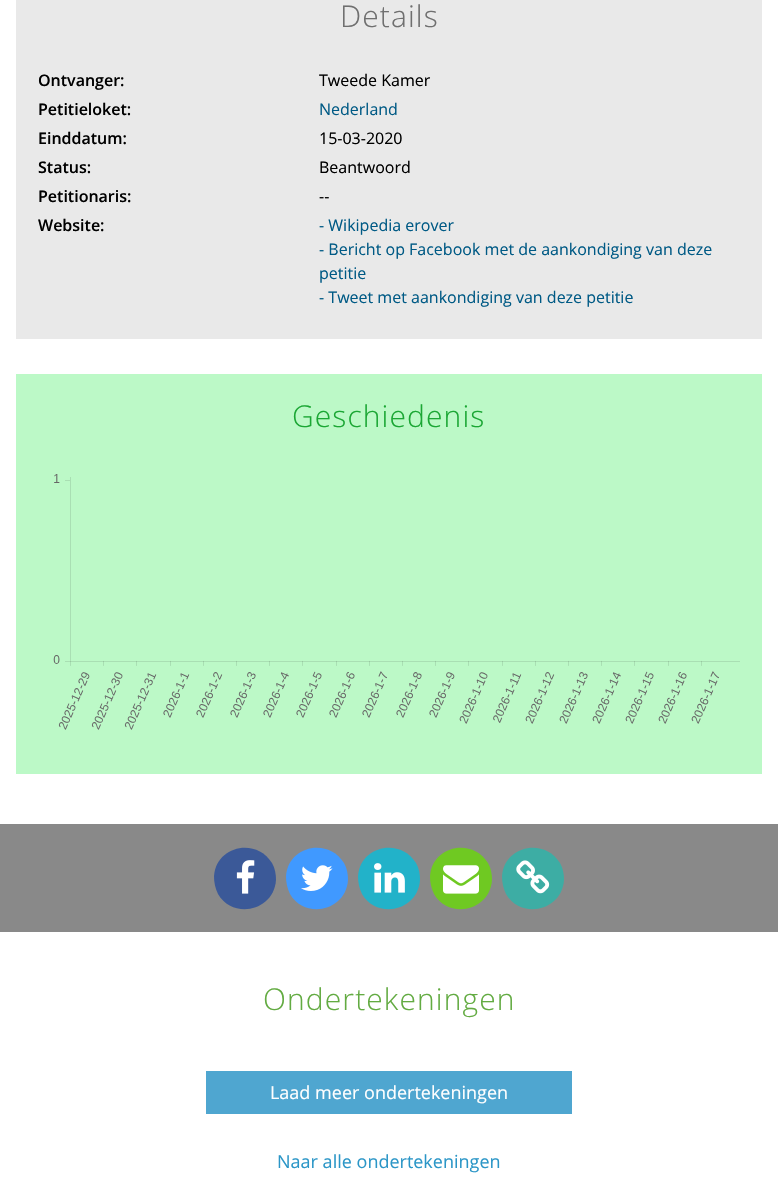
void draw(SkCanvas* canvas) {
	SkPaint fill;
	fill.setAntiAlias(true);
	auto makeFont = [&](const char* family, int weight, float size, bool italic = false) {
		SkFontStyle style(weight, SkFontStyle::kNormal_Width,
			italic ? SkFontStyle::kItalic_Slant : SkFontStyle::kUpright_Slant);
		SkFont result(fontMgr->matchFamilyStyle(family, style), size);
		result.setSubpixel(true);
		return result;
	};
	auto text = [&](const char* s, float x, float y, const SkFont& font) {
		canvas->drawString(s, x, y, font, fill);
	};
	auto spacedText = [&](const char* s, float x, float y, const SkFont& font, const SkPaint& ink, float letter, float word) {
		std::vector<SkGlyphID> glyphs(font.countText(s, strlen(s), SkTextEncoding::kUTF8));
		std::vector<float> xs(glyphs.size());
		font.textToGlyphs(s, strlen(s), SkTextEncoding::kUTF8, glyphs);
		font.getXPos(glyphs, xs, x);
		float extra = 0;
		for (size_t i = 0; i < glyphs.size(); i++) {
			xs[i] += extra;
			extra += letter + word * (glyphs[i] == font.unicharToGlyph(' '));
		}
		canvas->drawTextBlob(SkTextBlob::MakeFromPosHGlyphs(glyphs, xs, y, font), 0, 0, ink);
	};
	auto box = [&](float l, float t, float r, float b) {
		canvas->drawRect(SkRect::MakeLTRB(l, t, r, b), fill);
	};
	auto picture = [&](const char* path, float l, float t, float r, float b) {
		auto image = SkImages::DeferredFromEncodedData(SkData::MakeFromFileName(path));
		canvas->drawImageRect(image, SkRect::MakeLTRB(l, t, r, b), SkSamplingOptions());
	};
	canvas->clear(0xFFFFFFFF);
	fill.setColor(0xFFE9E9E9);
	box(16, 0, 762, 339);
	fill.setColor(0xFFBCF9C7);
	box(16, 374, 762, 774);
	picture("image0.png", 53, 474, 740, 730);
	fill.setColor(0xFF898989);
	box(0, 824, 778, 932);
	fill.setColor(0xFF3B5998);
	canvas->drawPath(SkPathBuilder().moveTo(272, 863).cubicTo(275, 868, 276, 874, 276, 880).cubicTo(274, 911, 233, 920, 218, 894).cubicTo(215, 888, 214, 882, 214, 876).cubicTo(216, 846, 256, 837, 272, 863).close().detach(), fill);
	picture("image1.png", 236, 860, 255, 894);
	fill.setColor(0xFF4099FF);
	canvas->drawPath(SkPathBuilder().moveTo(344, 863).cubicTo(347, 868, 348, 874, 348, 880).cubicTo(346, 911, 305, 920, 290, 894).cubicTo(287, 888, 286, 882, 286, 876).cubicTo(288, 846, 328, 837, 344, 863).close().detach(), fill);
	picture("image2.png", 301, 865, 333, 891);
	fill.setColor(0xFF22B2C9);
	canvas->drawPath(SkPathBuilder().moveTo(416, 863).cubicTo(419, 868, 420, 874, 420, 880).cubicTo(418, 911, 377, 920, 362, 894).cubicTo(359, 888, 358, 882, 358, 876).cubicTo(360, 846, 400, 837, 416, 863).close().detach(), fill);
	picture("image3.png", 374, 863, 405, 893);
	fill.setColor(0xFF6FC922);
	canvas->drawPath(SkPathBuilder().moveTo(488, 863).cubicTo(491, 868, 492, 874, 492, 880).cubicTo(490, 911, 449, 920, 434, 894).cubicTo(431, 888, 430, 882, 430, 876).cubicTo(432, 846, 472, 837, 488, 863).close().detach(), fill);
	picture("image4.png", 443, 865, 479, 894);
	fill.setColor(0xFF3DADA4);
	canvas->drawPath(SkPathBuilder().moveTo(560, 863).cubicTo(563, 868, 564, 874, 564, 880).cubicTo(562, 911, 521, 920, 506, 894).cubicTo(503, 888, 502, 882, 502, 876).cubicTo(504, 846, 544, 837, 560, 863).close().detach(), fill);
	picture("image5.png", 516, 860, 550, 894);
	fill.setColor(0xFF4FA6D0);
	box(206, 1071, 572, 1114);
	auto font1 = makeFont("Open Sans", 300, 30);
	fill.setColor(0xFF6F6F6F);
	spacedText("Details", 340, 27, font1, fill, 1.1f, 0);
	auto font2 = makeFont("Open Sans", 600, 16);
	fill.setColor(0xFF000000);
	text("Ontvanger:", 38, 86, font2);
	auto font3 = makeFont("Open Sans", 400, 16);
	text("Tweede Kamer", 319, 86, font3);
	text("Petitieloket:", 38, 115, font2);
	fill.setColor(0xFF005A85);
	text("Nederland", 319, 115, font3);
	fill.setColor(0xFF000000);
	text("Einddatum:", 38, 144, font2);
	text("15-03-2020", 319, 144, font3);
	text("Status:", 38, 173, font2);
	text("Beantwoord", 319, 173, font3);
	text("Petitionaris:", 38, 202, font2);
	text("--", 319, 202, font3);
	text("Website:", 38, 231, font2);
	fill.setColor(0xFF005A85);
	text("- Wikipedia erover", 319, 231, font3);
	text("- Bericht op Facebook met de aankondiging van deze", 319, 255, font3);
	text("petitie", 319, 279, font3);
	text("- Tweet met aankondiging van deze petitie", 319, 303, font3);
	fill.setColor(0xFF1BA734);
	spacedText("Geschiedenis", 292, 427, font1, fill, 1.1f, 0);
	fill.setColor(0xFF63AB42);
	spacedText("Ondertekeningen", 263, 1010, font1, fill, 1.1f, 0);
	auto font4 = makeFont("Open Sans", 400, 18);
	fill.setColor(0xFFFFFFFF);
	text("Laad meer ondertekeningen", 270, 1099, font4);
	fill.setColor(0xFF2B96C7);
	text("Naar alle ondertekeningen", 277, 1168, font4);
}
